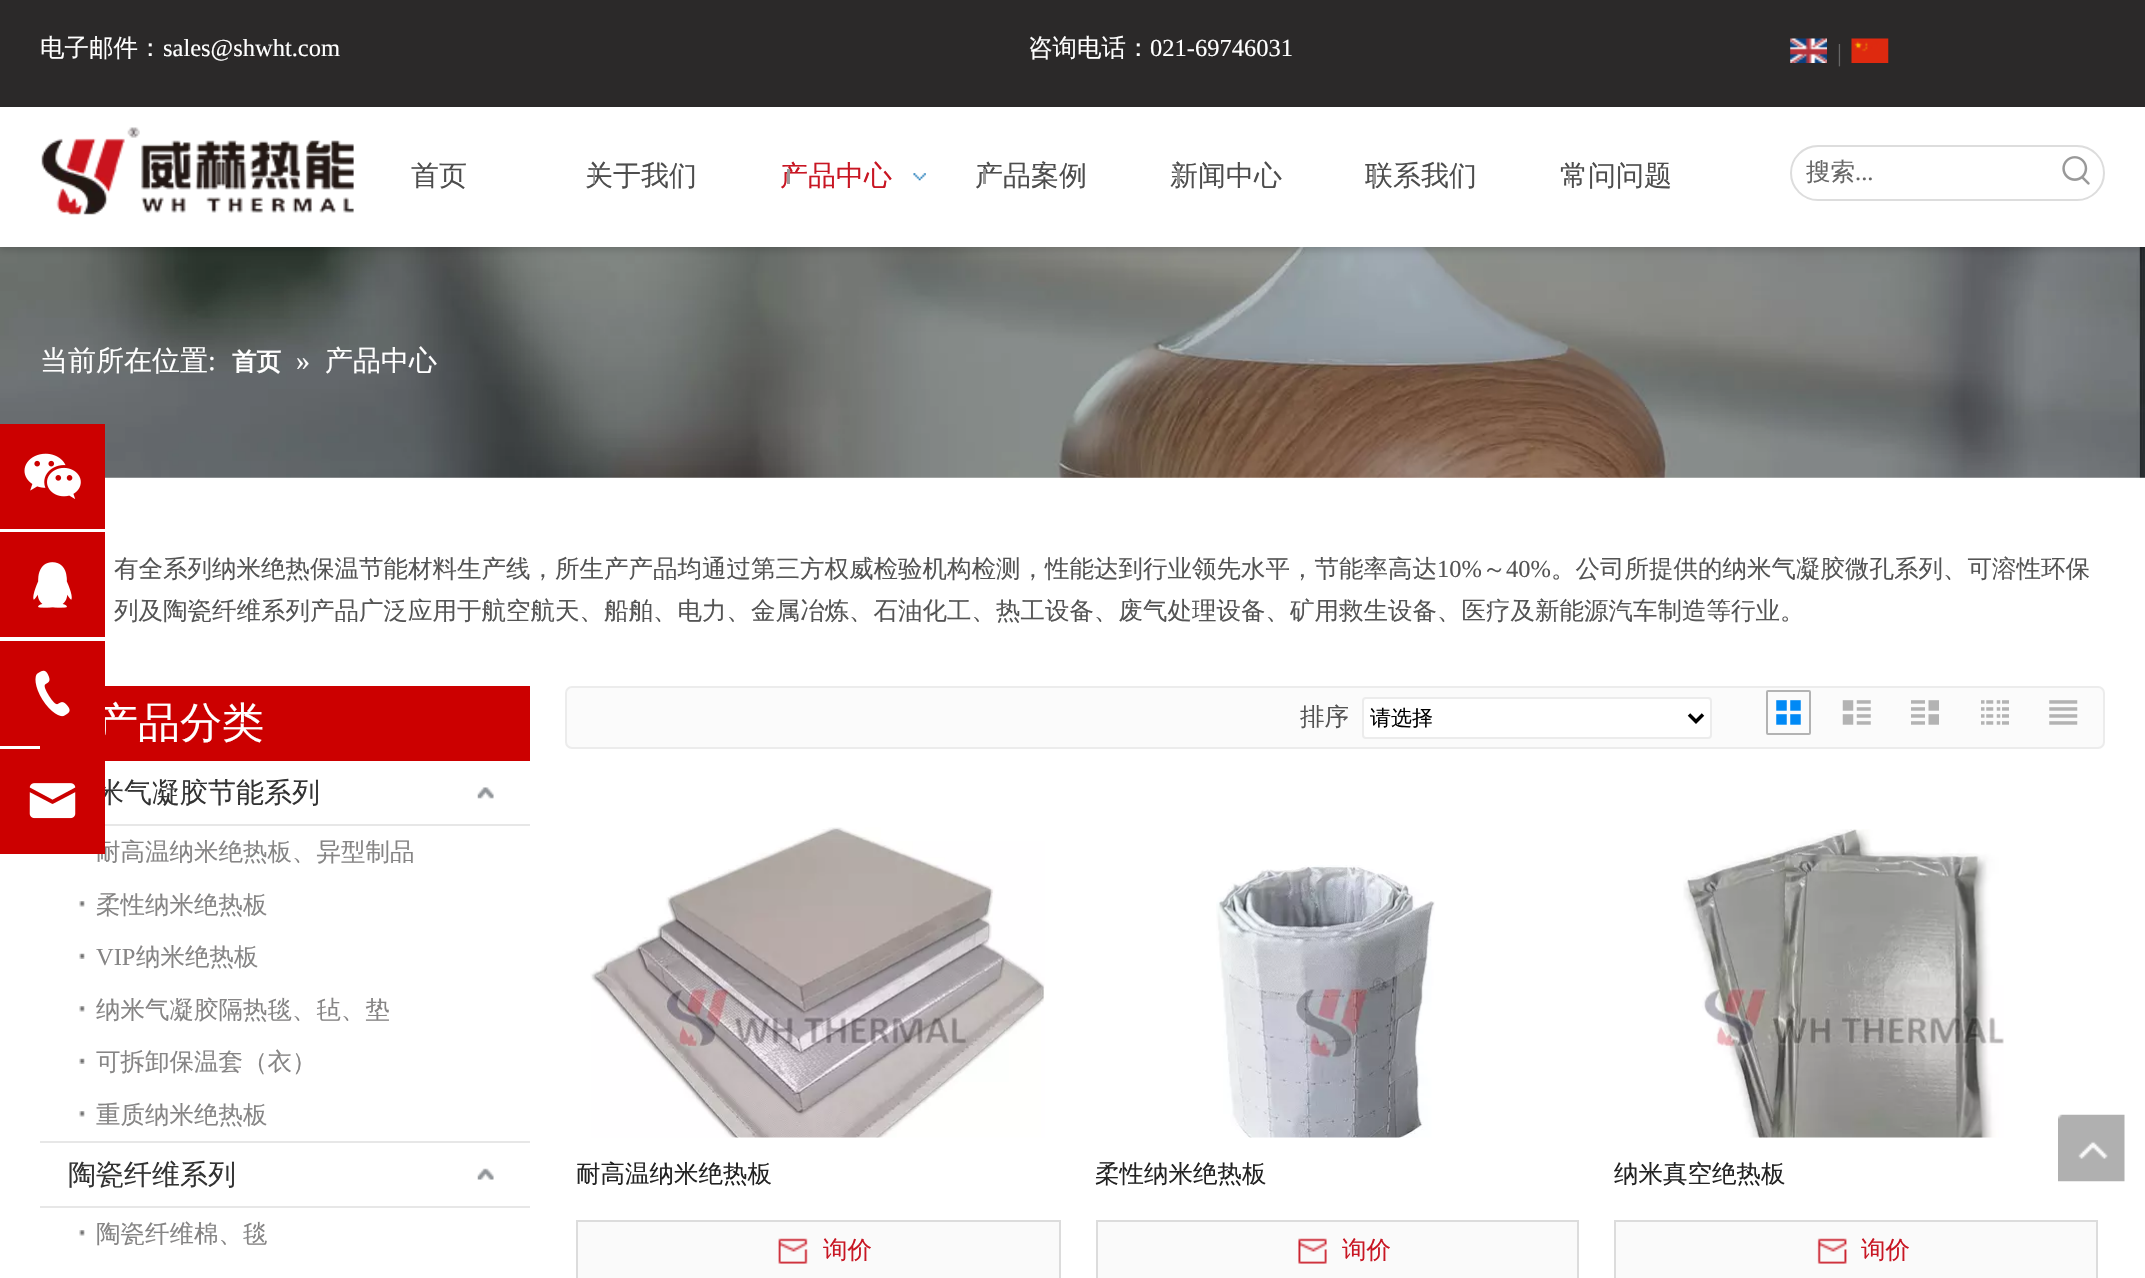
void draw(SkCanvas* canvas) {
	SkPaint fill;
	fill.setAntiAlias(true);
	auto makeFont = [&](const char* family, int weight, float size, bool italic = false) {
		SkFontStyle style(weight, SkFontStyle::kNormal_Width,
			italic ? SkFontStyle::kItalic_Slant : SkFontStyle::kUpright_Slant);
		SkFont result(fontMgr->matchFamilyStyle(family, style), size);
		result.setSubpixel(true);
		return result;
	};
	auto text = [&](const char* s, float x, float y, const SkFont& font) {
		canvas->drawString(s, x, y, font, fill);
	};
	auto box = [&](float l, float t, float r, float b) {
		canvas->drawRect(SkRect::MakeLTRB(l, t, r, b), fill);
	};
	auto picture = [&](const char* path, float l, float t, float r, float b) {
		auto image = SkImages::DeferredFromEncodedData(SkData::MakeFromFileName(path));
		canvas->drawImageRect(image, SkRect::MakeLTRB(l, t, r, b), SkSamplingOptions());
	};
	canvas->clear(0xFFFFFFFF);
	fill.setColor(0xFF2B2929);
	box(0, 0, 2145, 107);
	picture("image0.png", 1790, 38, 1827, 63);
	picture("image1.png", 1851, 38, 1889, 63);
	picture("image7.png", 0, 247, 2145, 478);
	fill.setColor(0x29000000);
	fill.setMaskFilter(SkMaskFilter::MakeBlur(kNormal_SkBlurStyle, 3.5f));
	canvas->drawRect(SkRect::MakeLTRB(0, 110, 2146, 250), fill);
	fill.setMaskFilter(nullptr);
	fill.setColor(0xFFFFFFFF);
	box(0, 107, 2145, 247);
	picture("image2.png", 41, 127, 354, 215);
	picture("image4.png", 913, 173, 926, 181);
	fill.setStyle(SkPaint::kStroke_Style);
	fill.setStrokeWidth(2);
	fill.setColor(0xFFDDDDDD);
	canvas->drawRoundRect(SkRect::MakeLTRB(1791, 146, 2104, 200), 27, 27, fill);
	picture("image6.png", 2062, 156, 2090, 185);
	fill.setStyle(SkPaint::kFill_Style);
	fill.setColor(0xFFCC0000);
	box(40, 686, 530, 761);
	fill.setColor(0xFFE7E7E7);
	box(105, 824, 530, 826);
	picture("image8.png", 477, 787, 494, 799);
	picture("image9.png", 79, 901, 85, 907);
	picture("image10.png", 79, 953, 85, 959);
	picture("image9.png", 79, 1006, 85, 1012);
	picture("image10.png", 79, 1058, 85, 1064);
	picture("image9.png", 79, 1111, 85, 1117);
	box(40, 1141, 530, 1143);
	box(40, 1206, 530, 1208);
	picture("image11.png", 477, 1168, 494, 1180);
	picture("image9.png", 79, 1230, 85, 1236);
	fill.setColor(0xFFFBFBFB);
	canvas->drawRoundRect(SkRect::MakeLTRB(566, 687, 2104, 748), 6, 6, fill);
	fill.setStyle(SkPaint::kStroke_Style);
	fill.setColor(0xFFECECEC);
	canvas->drawRoundRect(SkRect::MakeLTRB(566, 687, 2104, 748), 6, 6, fill);
	fill.setStyle(SkPaint::kFill_Style);
	fill.setColor(0xFFFFFFFF);
	canvas->drawRoundRect(SkRect::MakeLTRB(1363, 698, 1711, 738), 3, 3, fill);
	fill.setStyle(SkPaint::kStroke_Style);
	fill.setColor(0xFFECECEC);
	canvas->drawRoundRect(SkRect::MakeLTRB(1363, 698, 1711, 738), 3, 3, fill);
	fill.setStrokeWidth(3.5f);
	fill.setColor(0xFF000000);
	canvas->drawPath(SkPathBuilder().moveTo(1689, 714.5f).lineTo(1696, 721.5f).lineTo(1703, 714.5f).detach(), fill);
	fill.setStrokeWidth(2);
	fill.setColor(0xFFB3B3B3);
	canvas->drawRoundRect(SkRect::MakeLTRB(1767, 691, 1810, 734), 1, 1, fill);
	picture("image12.png", 1776, 700, 1801, 725);
	picture("image13.png", 1842, 700, 1871, 725);
	picture("image14.png", 1911, 700, 1939, 725);
	picture("image15.png", 1981, 700, 2009, 725);
	picture("image16.png", 2049, 700, 2078, 725);
	picture("image17.png", 590, 827, 1045, 1138);
	fill.setStyle(SkPaint::kFill_Style);
	fill.setColor(0xFFFAFAFA);
	canvas->drawRect(SkRect::MakeLTRB(577, 1221, 1060, 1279), fill);
	fill.setStyle(SkPaint::kStroke_Style);
	fill.setColor(0xFFDCDCDC);
	canvas->drawRect(SkRect::MakeLTRB(577, 1221, 1060, 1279), fill);
	picture("image18.png", 778, 1238, 808, 1264);
	picture("image19.png", 1216, 865, 1435, 1138);
	fill.setStyle(SkPaint::kFill_Style);
	fill.setColor(0xFFFAFAFA);
	canvas->drawRect(SkRect::MakeLTRB(1097, 1221, 1578, 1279), fill);
	fill.setStyle(SkPaint::kStroke_Style);
	fill.setColor(0xFFDCDCDC);
	canvas->drawRect(SkRect::MakeLTRB(1097, 1221, 1578, 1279), fill);
	picture("image20.png", 1298, 1238, 1327, 1264);
	picture("image21.png", 1683, 829, 2004, 1138);
	fill.setStyle(SkPaint::kFill_Style);
	fill.setColor(0xFFFAFAFA);
	canvas->drawRect(SkRect::MakeLTRB(1615, 1221, 2097, 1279), fill);
	fill.setStyle(SkPaint::kStroke_Style);
	fill.setColor(0xFFDCDCDC);
	canvas->drawRect(SkRect::MakeLTRB(1615, 1221, 2097, 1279), fill);
	picture("image22.png", 1817, 1238, 1847, 1264);
	fill.setStyle(SkPaint::kFill_Style);
	fill.setColor(0xFFCC0000);
	box(0, 424, 105, 529);
	picture("image23.png", 24, 453, 81, 499);
	box(0, 532, 105, 637);
	picture("image24.png", 33, 562, 72, 608);
	picture("image27.png", 2058, 1114, 2125, 1182);
	auto font1 = makeFont("WenQuanYi Zen Hei", 500, 24.5f);
	fill.setColor(0xFFFFFFFF);
	text("电子邮件：", 40, 56, font1);
	auto font2 = makeFont("Liberation Serif", 400, 24.5f);
	text("sales@shwht.com", 163, 56, font2);
	text("咨询电话：", 1028, 56, font1);
	text("021-69746031", 1150, 56, font2);
	fill.setColor(0xFF666666);
	text("|", 1837, 61, font2);
	auto font3 = makeFont("WenQuanYi Zen Hei", 500, 28);
	fill.setColor(0xFF4D4D4D);
	text("首页", 411, 185, font3);
	text("关于我们", 585, 185, font3);
	picture("image3.png", 593, 169, 595, 184);
	fill.setColor(0xFFC81623);
	text("产品中心", 780, 185, font3);
	fill.setColor(0xFF999999);
	box(787, 169, 790, 184);
	fill.setColor(0xFF4D4D4D);
	text("产品案例", 975, 185, font3);
	fill.setColor(0xFF999999);
	box(983, 169, 986, 184);
	fill.setColor(0xFF4D4D4D);
	text("新闻中心", 1170, 185, font3);
	fill.setColor(0xFF999999);
	box(1177, 169, 1180, 184);
	fill.setColor(0xFF4D4D4D);
	text("联系我们", 1365, 185, font3);
	fill.setColor(0xFF999999);
	box(1373, 169, 1376, 184);
	fill.setColor(0xFF4D4D4D);
	text("常问问题", 1560, 185, font3);
	picture("image5.png", 1568, 169, 1570, 184);
	fill.setColor(0xFF666666);
	text("搜索", 1806, 180, font1);
	text("...", 1855, 180, font2);
	fill.setColor(0xFFFFFFFF);
	text("当前所在位置", 40, 370, font3);
	auto font4 = makeFont("Liberation Serif", 400, 28);
	text(":", 208, 370, font4);
	auto font5 = makeFont("WenQuanYi Zen Hei", 700, 24.5f);
	text("首页", 232, 370, font5);
	text("»", 296, 370, font4);
	text("产品中心", 325, 370, font3);
	fill.setColor(0xFF545454);
	text("有全系列纳米绝热保温节能材料生产线，所生产产品均通过第三方权威检验机构检测，性能达到行业领先水平，节能率高达", 114, 577, font1);
	text("10%", 1437, 577, font2);
	text("～", 1482, 577, font1);
	text("40%", 1506, 577, font2);
	text("。公司所提供的纳米气凝胶微孔系列、可溶性环保", 1551, 577, font1);
	text("列及陶瓷纤维系列产品广泛应用于航空航天、船舶、电力、金属冶炼、石油化工、热工设备、废气处理设备、矿用救生设备、医疗及新能源汽车制造等行业。", 114, 619, font1);
	auto font6 = makeFont("WenQuanYi Zen Hei", 500, 42);
	fill.setColor(0xFFFFFFFF);
	text("产品分类", 96, 737, font6);
	fill.setColor(0xFF333333);
	text("米气凝胶节能系列", 96, 802, font3);
	fill.setColor(0xFF868585);
	text("耐高温纳米绝热板、异型制品", 96, 860, font1);
	text("柔性纳米绝热板", 96, 913, font1);
	text("VIP", 96, 965, font2);
	text("纳米绝热板", 136, 965, font1);
	text("纳米气凝胶隔热毯、毡、垫", 96, 1018, font1);
	text("可拆卸保温套（衣）", 96, 1070, font1);
	text("重质纳米绝热板", 96, 1123, font1);
	fill.setColor(0xFF333333);
	text("陶瓷纤维系列", 68, 1184, font3);
	fill.setColor(0xFF868585);
	text("陶瓷纤维棉、毯", 96, 1242, font1);
	fill.setColor(0xFF545454);
	text("排序", 1300, 725, font1);
	auto font7 = makeFont("WenQuanYi Zen Hei", 500, 21);
	fill.setColor(0xFF000000);
	text("请选择", 1370, 725, font7);
	fill.setColor(0xFF222222);
	text("耐高温纳米绝热板", 576, 1182, font1);
	fill.setColor(0xFFC81623);
	text("询价", 823, 1258, font1);
	fill.setColor(0xFF222222);
	text("柔性纳米绝热板", 1095, 1182, font1);
	fill.setColor(0xFFC81623);
	text("询价", 1342, 1258, font1);
	fill.setColor(0xFF222222);
	text("纳米真空绝热板", 1614, 1182, font1);
	fill.setColor(0xFFC81623);
	text("询价", 1861, 1258, font1);
	fill.setColor(0xFFCC0000);
	box(0, 641, 105, 746);
	picture("image25.png", 35, 670, 70, 717);
	box(0, 749, 105, 854);
	picture("image26.png", 29, 783, 76, 819);
}
